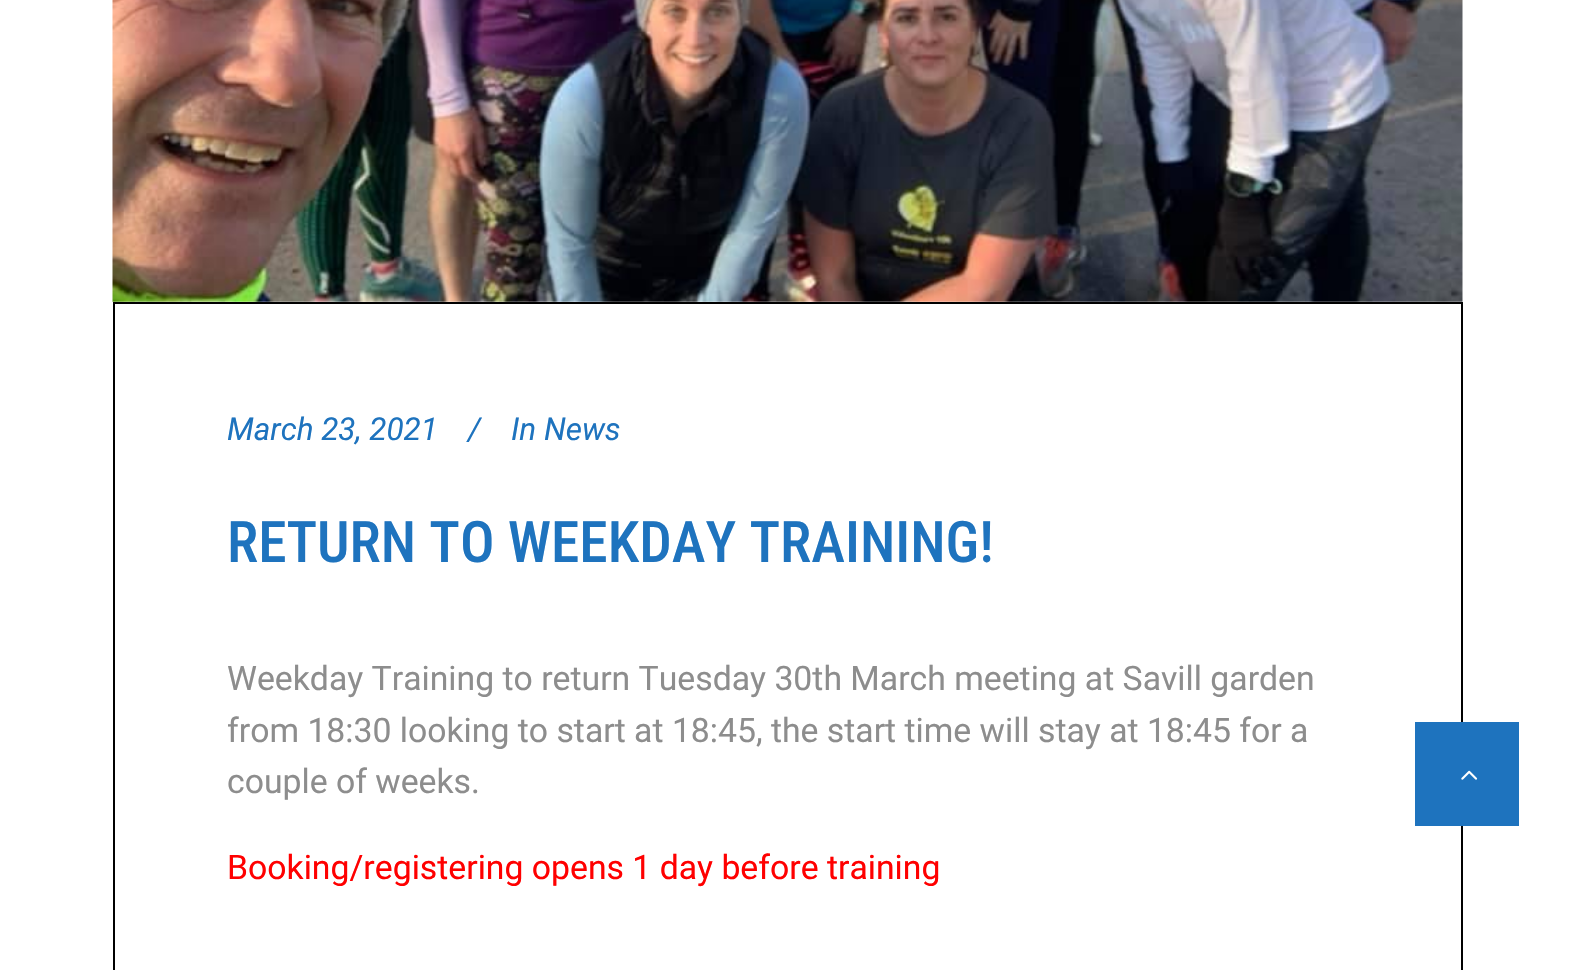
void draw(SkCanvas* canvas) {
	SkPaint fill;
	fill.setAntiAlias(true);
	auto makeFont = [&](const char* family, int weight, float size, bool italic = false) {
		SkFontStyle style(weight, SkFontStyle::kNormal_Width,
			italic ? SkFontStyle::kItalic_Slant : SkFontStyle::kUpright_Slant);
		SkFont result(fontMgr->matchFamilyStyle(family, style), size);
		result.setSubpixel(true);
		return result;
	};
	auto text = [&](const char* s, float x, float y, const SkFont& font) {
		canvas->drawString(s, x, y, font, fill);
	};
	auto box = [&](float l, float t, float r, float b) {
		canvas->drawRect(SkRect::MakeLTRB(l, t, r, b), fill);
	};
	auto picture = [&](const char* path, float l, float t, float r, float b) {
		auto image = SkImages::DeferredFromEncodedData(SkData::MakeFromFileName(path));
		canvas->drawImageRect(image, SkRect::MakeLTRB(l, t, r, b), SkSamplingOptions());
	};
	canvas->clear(0xFFFFFFFF);
	picture("image0.png", 112, 0, 1463, 302);
	fill.setStyle(SkPaint::kStroke_Style);
	fill.setStrokeWidth(2);
	fill.setColor(0xFF000000);
	canvas->drawRect(SkRect::MakeLTRB(114, 303, 1462, 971), fill);
	fill.setStyle(SkPaint::kFill_Style);
	fill.setColor(0xFF1E73BE);
	box(1415, 722, 1519, 826);
	picture("image1.png", 1461, 770, 1478, 780);
	auto font1 = makeFont("Roboto", 400, 31.5f, true);
	text("March 23, 2021", 227, 440, font1);
	text("/", 468, 440, font1);
	text("In News", 511, 440, font1);
	auto font2 = makeFont("Roboto Condensed", 500, 57.4f);
	text("RETURN TO WEEKDAY TRAINING!", 227, 562, font2);
	auto font3 = makeFont("Roboto", 400, 33.75f);
	fill.setColor(0xFF8D8D8D);
	text("Weekday Training to return Tuesday 30th March meeting at Savill garden", 227, 690, font3);
	text("from 18:30 looking to start at 18:45, the start time will stay at 18:45 for a", 227, 742, font3);
	text("couple of weeks.", 227, 793, font3);
	fill.setColor(0xFFFF0000);
	text("Booking/registering opens 1 day before training", 227, 879, font3);
}
